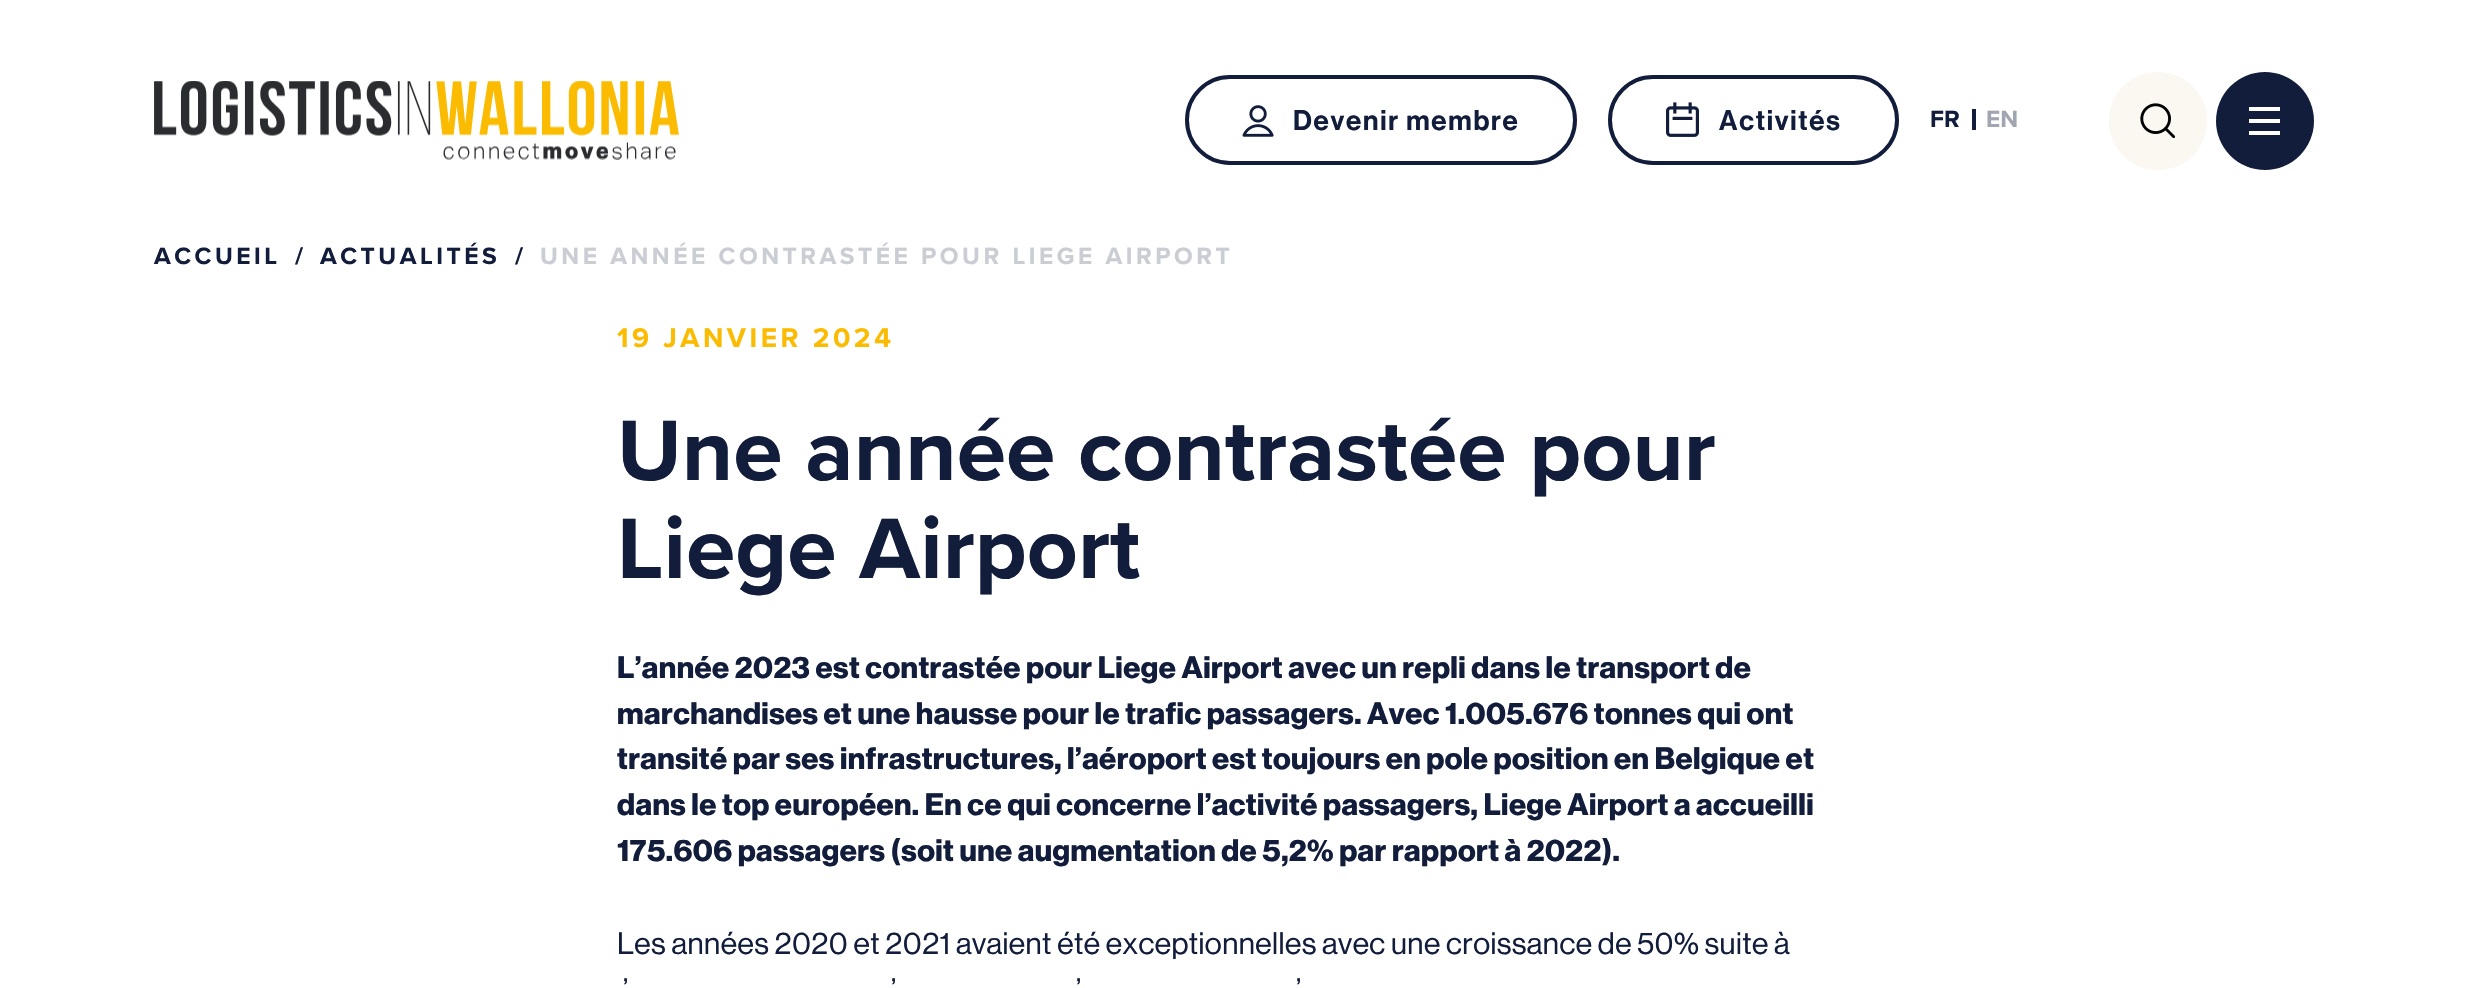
void draw(SkCanvas* canvas) {
	SkPaint fill;
	fill.setAntiAlias(true);
	auto makeFont = [&](const char* family, int weight, float size, bool italic = false) {
		SkFontStyle style(weight, SkFontStyle::kNormal_Width,
			italic ? SkFontStyle::kItalic_Slant : SkFontStyle::kUpright_Slant);
		SkFont result(fontMgr->matchFamilyStyle(family, style), size);
		result.setSubpixel(true);
		return result;
	};
	auto text = [&](const char* s, float x, float y, const SkFont& font) {
		canvas->drawString(s, x, y, font, fill);
	};
	auto spacedText = [&](const char* s, float x, float y, const SkFont& font, const SkPaint& ink, float letter, float word) {
		std::vector<SkGlyphID> glyphs(font.countText(s, strlen(s), SkTextEncoding::kUTF8));
		std::vector<float> xs(glyphs.size());
		font.textToGlyphs(s, strlen(s), SkTextEncoding::kUTF8, glyphs);
		font.getXPos(glyphs, xs, x);
		float extra = 0;
		for (size_t i = 0; i < glyphs.size(); i++) {
			xs[i] += extra;
			extra += letter + word * (glyphs[i] == font.unicharToGlyph(' '));
		}
		canvas->drawTextBlob(SkTextBlob::MakeFromPosHGlyphs(glyphs, xs, y, font), 0, 0, ink);
	};
	auto box = [&](float l, float t, float r, float b) {
		canvas->drawRect(SkRect::MakeLTRB(l, t, r, b), fill);
	};
	auto picture = [&](const char* path, float l, float t, float r, float b) {
		auto image = SkImages::DeferredFromEncodedData(SkData::MakeFromFileName(path));
		canvas->drawImageRect(image, SkRect::MakeLTRB(l, t, r, b), SkSamplingOptions());
	};
	canvas->clear(0xFFFFFFFF);
	picture("image0.png", 154, 81, 679, 160);
	fill.setStyle(SkPaint::kStroke_Style);
	fill.setStrokeWidth(4);
	fill.setColor(0xFF121D3B);
	canvas->drawRoundRect(SkRect::MakeLTRB(1187, 77, 1575, 163), 43, 43, fill);
	picture("image1.png", 1242, 105, 1274, 137);
	canvas->drawRoundRect(SkRect::MakeLTRB(1610, 77, 1897, 163), 43, 43, fill);
	picture("image2.png", 1666, 102, 1699, 137);
	fill.setStyle(SkPaint::kFill_Style);
	box(1972, 109, 1976, 130);
	fill.setColor(0xFFFBF7F1);
	canvas->drawCircle(2158, 121, 49, fill);
	picture("image3.png", 2140, 103, 2175, 138);
	fill.setColor(0xFF121D3B);
	canvas->drawCircle(2265, 121, 49, fill);
	fill.setColor(0xFFFFFFFF);
	box(2249, 119, 2280, 123);
	box(2249, 107, 2280, 111);
	box(2249, 131, 2280, 135);
	auto font1 = makeFont("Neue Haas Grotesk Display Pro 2", 500, 28);
	fill.setColor(0xFF121D3B);
	spacedText("Devenir membre", 1293, 130, font1, fill, 1.75f, 0);
	spacedText("Activités", 1719, 130, font1, fill, 1.75f, 0);
	auto font2 = makeFont("Proxima Nova", 700, 24.5f);
	text("FR", 1930, 127, font2);
	fill.setColor(0xFFA0A5B1);
	text("EN", 1986, 127, font2);
	fill.setColor(0xFF121D3B);
	spacedText("ACCUEIL", 154, 264, font2, fill, 3.5f, 0);
	spacedText("/", 295, 264, font2, fill, 3.5f, 0);
	spacedText("ACTUALITÉS", 320, 264, font2, fill, 3.5f, 0);
	spacedText("/", 515, 264, font2, fill, 3.5f, 0);
	fill.setColor(0xFFCBCDD4);
	spacedText("UNE ANNÉE CONTRASTÉE POUR LIEGE AIRPORT", 540, 264, font2, fill, 3.5f, 0);
	auto font3 = makeFont("Proxima Nova", 700, 28);
	fill.setColor(0xFFFABB00);
	spacedText("19 JANVIER 2024", 617, 347, font3, fill, 3.5f, 0);
	auto font4 = makeFont("Proxima Nova", 700, 89);
	fill.setColor(0xFF121D3B);
	text("Une année contrastée pour", 617, 480, font4);
	text("Liege Airport", 617, 578, font4);
	auto font5 = makeFont("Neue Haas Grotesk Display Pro", 700, 30.55f);
	spacedText("L’année 2023 est contrastée pour Liege Airport avec un repli dans le transport de", 617, 678, font5, fill, 0.45f, 0);
	spacedText("marchandises et une hausse pour le trafic passagers. Avec 1.005.676 tonnes qui ont", 617, 724, font5, fill, 0.45f, 0);
	spacedText("transité par ses infrastructures, l’aéroport est toujours en pole position en Belgique et", 617, 769, font5, fill, 0.45f, 0);
	spacedText("dans le top européen. En ce qui concerne l’activité passagers, Liege Airport a accueilli", 617, 815, font5, fill, 0.45f, 0);
	spacedText("175.606 passagers (soit une augmentation de 5,2% par rapport à 2022).", 617, 861, font5, fill, 0.45f, 0);
	auto font6 = makeFont("Neue Haas Grotesk Display Pro", 500, 30.55f);
	spacedText("Les années 2020 et 2021 avaient été exceptionnelles avec une croissance de 50% suite à", 617, 954, font6, fill, 0.45f, 0);
	spacedText("’", 623, 1000, font6, fill, 0.45f, 0);
	spacedText("’", 891, 1000, font6, fill, 0.45f, 0);
	spacedText("’", 1076, 1000, font6, fill, 0.45f, 0);
	spacedText("’", 1296, 1000, font6, fill, 0.45f, 0);
}
